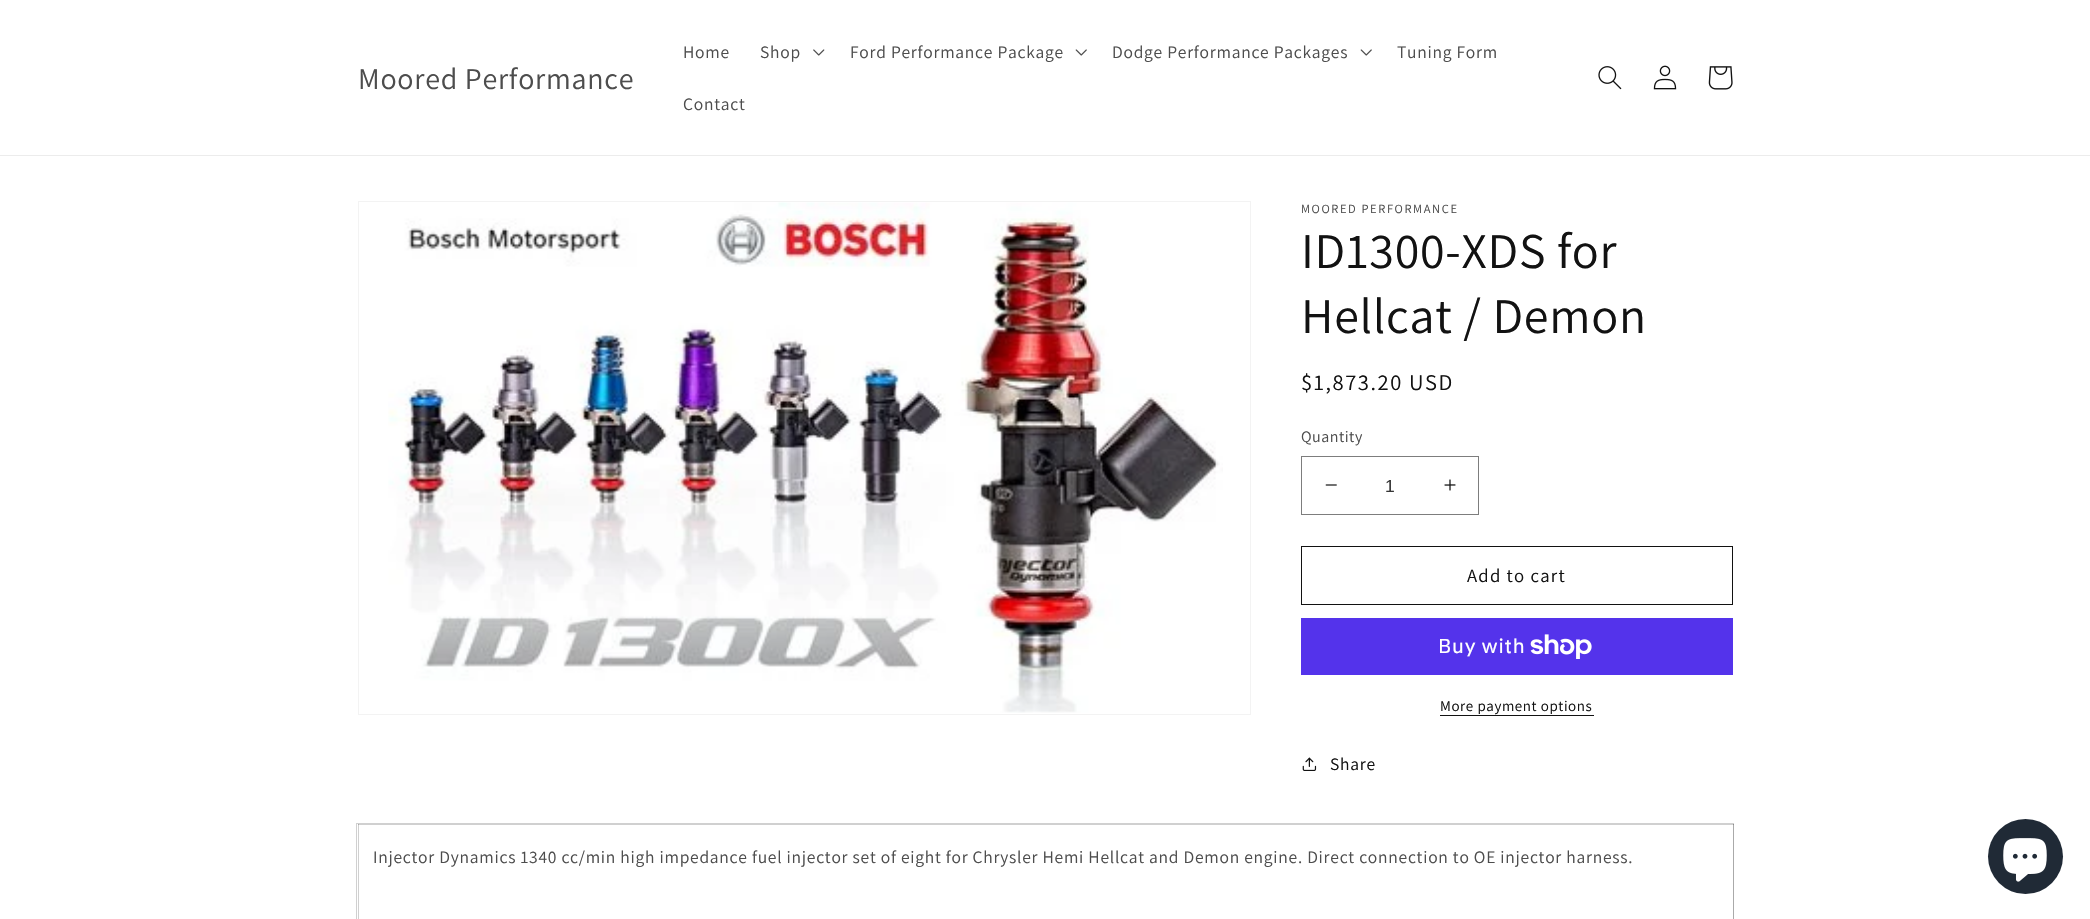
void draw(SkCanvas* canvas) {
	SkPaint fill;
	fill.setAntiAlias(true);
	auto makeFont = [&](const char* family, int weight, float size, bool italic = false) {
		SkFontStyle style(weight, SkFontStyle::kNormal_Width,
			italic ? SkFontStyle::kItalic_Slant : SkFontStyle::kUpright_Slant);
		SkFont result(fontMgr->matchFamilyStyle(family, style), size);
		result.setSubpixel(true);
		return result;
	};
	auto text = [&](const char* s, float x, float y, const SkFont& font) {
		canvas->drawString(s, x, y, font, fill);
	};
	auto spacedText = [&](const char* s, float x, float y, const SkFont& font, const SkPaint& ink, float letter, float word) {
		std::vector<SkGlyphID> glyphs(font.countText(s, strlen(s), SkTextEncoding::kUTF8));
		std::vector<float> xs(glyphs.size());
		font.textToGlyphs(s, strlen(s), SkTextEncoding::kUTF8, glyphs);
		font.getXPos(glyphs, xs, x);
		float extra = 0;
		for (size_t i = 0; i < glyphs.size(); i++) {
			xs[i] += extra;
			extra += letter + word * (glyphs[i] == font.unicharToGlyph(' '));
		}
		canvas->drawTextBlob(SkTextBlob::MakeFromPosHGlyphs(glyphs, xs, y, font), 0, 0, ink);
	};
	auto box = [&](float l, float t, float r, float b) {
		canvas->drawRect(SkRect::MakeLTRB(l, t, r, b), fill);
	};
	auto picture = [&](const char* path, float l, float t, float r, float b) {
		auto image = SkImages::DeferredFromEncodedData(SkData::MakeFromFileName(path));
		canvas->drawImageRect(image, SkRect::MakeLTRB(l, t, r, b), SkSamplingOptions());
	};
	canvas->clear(0xFFFFFFFF);
	fill.setColor(0xFFECECEC);
	box(0, 155, 2090, 156);
	picture("image0.png", 813, 49, 825, 56);
	picture("image1.png", 1075, 49, 1087, 56);
	picture("image1.png", 1360, 49, 1372, 56);
	picture("image2.png", 1598, 66, 1622, 90);
	picture("image3.png", 1653, 65, 1677, 90);
	picture("image4.png", 1708, 66, 1733, 90);
	fill.setStyle(SkPaint::kStroke_Style);
	fill.setStrokeWidth(1);
	fill.setColor(0xFFF3F3F3);
	canvas->drawRect(SkRect::MakeLTRB(358.5f, 201.5f, 1250.5f, 714.5f), fill);
	picture("image5.png", 388, 202, 1223, 713);
	picture("image6.png", 1325, 484, 1337, 486);
	picture("image7.png", 1444, 479, 1456, 491);
	fill.setColor(0xFF7D7D7D);
	canvas->drawRect(SkRect::MakeLTRB(1301.5f, 456.5f, 1478.5f, 514.5f), fill);
	fill.setColor(0xFF121212);
	canvas->drawRect(SkRect::MakeLTRB(1301.5f, 546.5f, 1732.5f, 604.5f), fill);
	fill.setStyle(SkPaint::kFill_Style);
	fill.setColor(0xFF5433EB);
	box(1301, 618, 1733, 675);
	picture("image8.png", 1530, 634, 1592, 659);
	fill.setColor(0xFF121212);
	box(1440, 715, 1594, 716);
	picture("image9.png", 1302, 757, 1317, 771);
	fill.setStyle(SkPaint::kStroke_Style);
	fill.setColor(0xFFD0D0D0);
	canvas->drawRect(SkRect::MakeLTRB(356.5f, 823.5f, 1733.5f, 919.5f), fill);
	fill.setStyle(SkPaint::kFill_Style);
	fill.setColor(0x33121212);
	box(358, 824, 1734, 825);
	box(1733, 824, 1734, 919);
	box(358, 824, 359, 919);
	fill.setColor(0xFF202A36);
	canvas->drawCircle(2025.5f, 856.5f, 37.5f, fill);
	picture("image10.png", 2003, 838, 2047, 882);
	auto font1 = makeFont("Assistant", 400, 30);
	fill.setColor(0xFF4D4D4D);
	spacedText("Moored Performance", 358, 89, font1, fill, 0.75f, 0);
	auto font2 = makeFont("Assistant", 400, 17.5f);
	spacedText("Home", 683, 58, font2, fill, 0.75f, 0);
	spacedText("Shop", 760, 58, font2, fill, 0.75f, 0);
	spacedText("Ford Performance Package", 850, 58, font2, fill, 0.75f, 0);
	spacedText("Dodge Performance Packages", 1112, 58, font2, fill, 0.75f, 0);
	spacedText("Tuning Form", 1397, 58, font2, fill, 0.75f, 0);
	spacedText("Contact", 683, 110, font2, fill, 0.75f, 0);
	auto font3 = makeFont("Assistant", 400, 12.5f);
	spacedText("MOORED PERFORMANCE", 1301, 213, font3, fill, 1.6f, 0);
	auto font4 = makeFont("Assistant", 400, 50);
	fill.setColor(0xFF121212);
	spacedText("ID1300-XDS for", 1301, 268, font4, fill, 0.75f, 0);
	spacedText("Hellcat / Demon", 1301, 333, font4, fill, 0.75f, 0);
	auto font5 = makeFont("Assistant", 400, 22.5f);
	spacedText("$1,873.20 USD", 1301, 390, font5, fill, 1.6f, 0);
	auto font6 = makeFont("Assistant", 400, 16);
	fill.setColor(0xFF4D4D4D);
	spacedText("Quantity", 1301, 442, font6, fill, 0.5f, 0);
	auto font7 = makeFont("Liberation Sans", 400, 17.5f);
	fill.setColor(0xFF363636);
	text("1", 1385, 492, font7);
	auto font8 = makeFont("Assistant", 400, 18.75f);
	fill.setColor(0xFF121212);
	spacedText("Add to cart", 1467, 582, font8, fill, 1.25f, 0);
	auto font9 = makeFont("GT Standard", 400, 20);
	fill.setColor(0xFFFFFFFF);
	spacedText("Buy with", 1438, 653, font9, fill, 0.75f, 0);
	auto font10 = makeFont("Assistant", 400, 15);
	fill.setColor(0xFF121212);
	spacedText("More payment options", 1440, 711, font10, fill, 0.6f, 0);
	spacedText("Share", 1330, 770, font2, fill, 0.75f, 0);
	fill.setColor(0xFF4D4D4D);
	spacedText("Injector Dynamics 1340 cc/min high impedance fuel injector set of eight for Chrysler Hemi Hellcat and Demon engine. Direct connection to OE injector harness.", 373, 863, font2, fill, 0.75f, 0);
}
